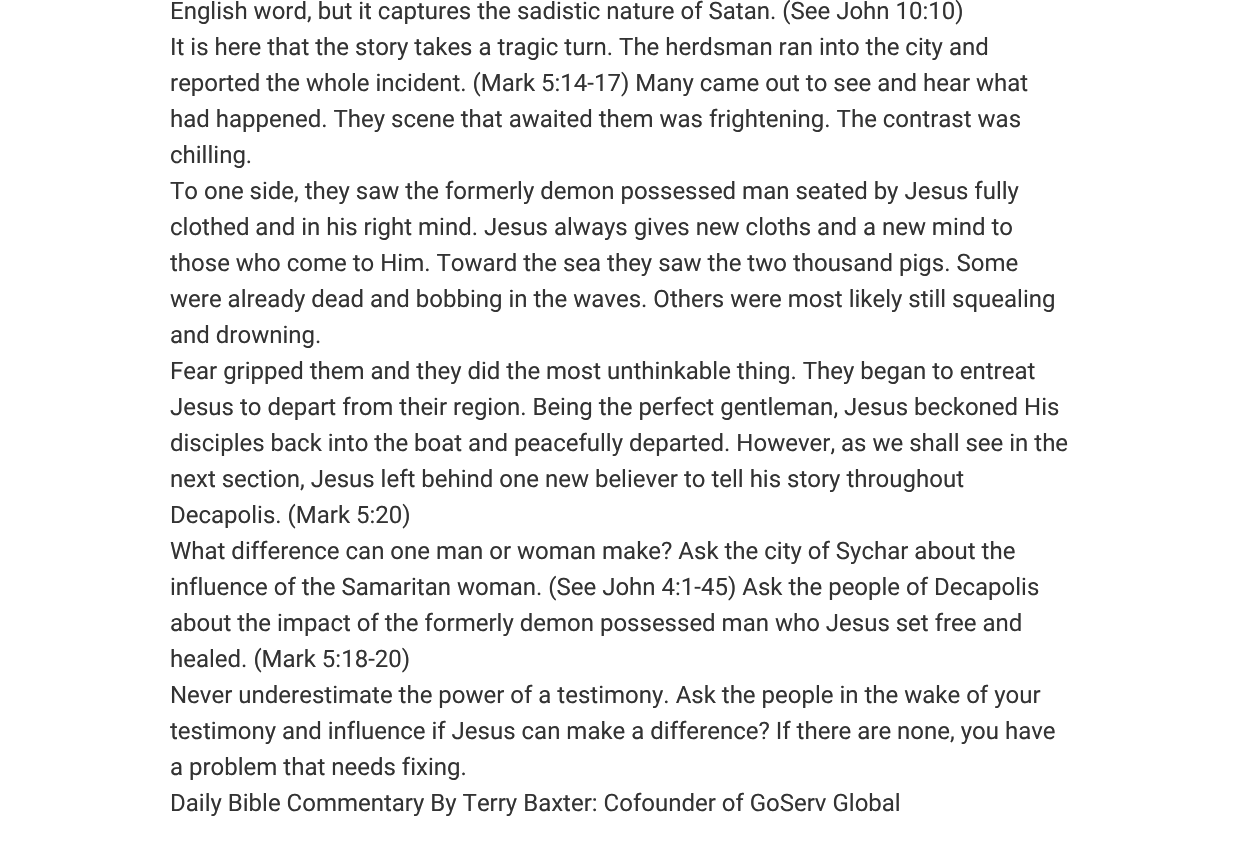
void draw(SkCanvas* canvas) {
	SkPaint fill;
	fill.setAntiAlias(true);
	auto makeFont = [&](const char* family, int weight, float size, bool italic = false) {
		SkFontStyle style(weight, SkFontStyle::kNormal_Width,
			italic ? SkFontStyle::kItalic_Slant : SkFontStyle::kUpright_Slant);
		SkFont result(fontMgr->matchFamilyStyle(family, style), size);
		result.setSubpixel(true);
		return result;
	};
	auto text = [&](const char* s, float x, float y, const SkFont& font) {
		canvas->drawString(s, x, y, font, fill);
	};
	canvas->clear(0xFFFFFFFF);
	auto font1 = makeFont("Roboto", 400, 24);
	fill.setColor(0xFF333333);
	text("English word, but it captures the sadistic nature of Satan. (See John 10:10)", 170, 19, font1);
	text("It is here that the story takes a tragic turn. The herdsman ran into the city and", 170, 55, font1);
	text("reported the whole incident. (Mark 5:14-17) Many came out to see and hear what", 170, 91, font1);
	text("had happened. They scene that awaited them was frightening. The contrast was", 170, 127, font1);
	text("chilling.", 170, 163, font1);
	text("To one side, they saw the formerly demon possessed man seated by Jesus fully", 170, 199, font1);
	text("clothed and in his right mind. Jesus always gives new cloths and a new mind to", 170, 235, font1);
	text("those who come to Him. Toward the sea they saw the two thousand pigs. Some", 170, 271, font1);
	text("were already dead and bobbing in the waves. Others were most likely still squealing", 170, 307, font1);
	text("and drowning.", 170, 343, font1);
	text("Fear gripped them and they did the most unthinkable thing. They began to entreat", 170, 379, font1);
	text("Jesus to depart from their region. Being the perfect gentleman, Jesus beckoned His", 170, 415, font1);
	text("disciples back into the boat and peacefully departed. However, as we shall see in the", 170, 451, font1);
	text("next section, Jesus left behind one new believer to tell his story throughout", 170, 487, font1);
	text("Decapolis. (Mark 5:20)", 170, 523, font1);
	text("What difference can one man or woman make? Ask the city of Sychar about the", 170, 559, font1);
	text("influence of the Samaritan woman. (See John 4:1-45) Ask the people of Decapolis", 170, 595, font1);
	text("about the impact of the formerly demon possessed man who Jesus set free and", 170, 631, font1);
	text("healed. (Mark 5:18-20)", 170, 667, font1);
	text("Never underestimate the power of a testimony. Ask the people in the wake of your", 170, 703, font1);
	text("testimony and influence if Jesus can make a difference? If there are none, you have", 170, 739, font1);
	text("a problem that needs fixing.", 170, 775, font1);
	text("Daily Bible Commentary By Terry Baxter: Cofounder of GoServ Global", 170, 811, font1);
}
